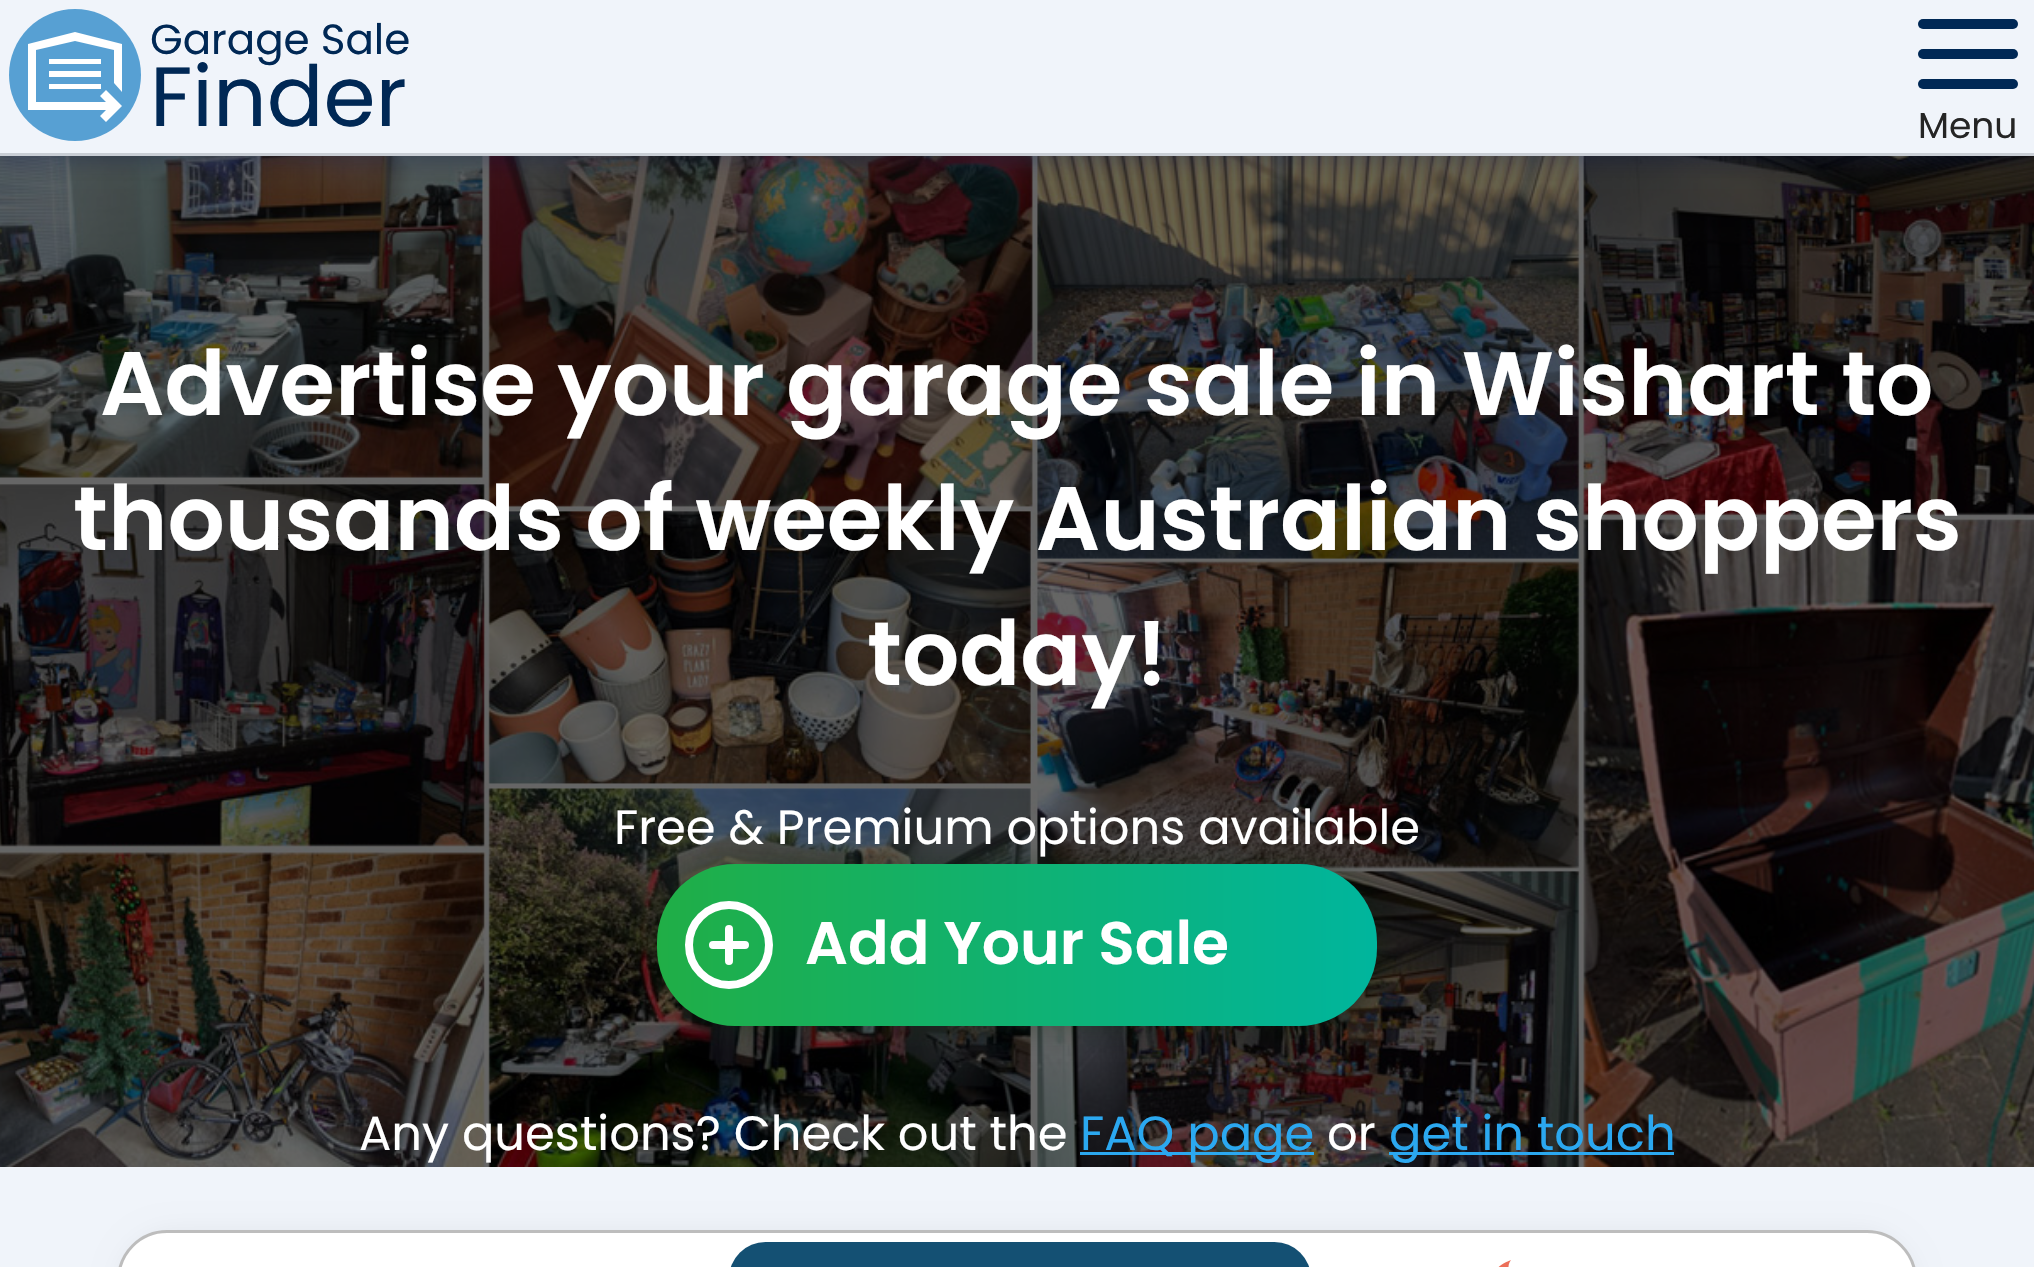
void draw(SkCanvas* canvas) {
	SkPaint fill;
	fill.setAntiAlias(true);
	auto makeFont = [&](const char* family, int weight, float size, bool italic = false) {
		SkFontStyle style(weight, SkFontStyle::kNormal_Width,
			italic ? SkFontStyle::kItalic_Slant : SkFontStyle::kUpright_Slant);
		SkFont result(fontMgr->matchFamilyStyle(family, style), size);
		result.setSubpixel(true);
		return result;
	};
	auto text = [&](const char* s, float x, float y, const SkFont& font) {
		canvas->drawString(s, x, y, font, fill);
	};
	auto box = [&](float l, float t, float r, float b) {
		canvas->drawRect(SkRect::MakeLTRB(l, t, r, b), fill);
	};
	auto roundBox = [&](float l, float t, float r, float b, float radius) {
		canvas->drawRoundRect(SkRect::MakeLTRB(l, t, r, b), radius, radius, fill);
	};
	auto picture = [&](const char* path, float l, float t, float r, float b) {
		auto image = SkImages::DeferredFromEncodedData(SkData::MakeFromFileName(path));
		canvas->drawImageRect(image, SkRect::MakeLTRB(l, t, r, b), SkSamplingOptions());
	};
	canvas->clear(0xFFF0F4FA);
	picture("image0.png", 0, 156, 2034, 1167);
	fill.setColor(0x38001455);
	fill.setMaskFilter(SkMaskFilter::MakeBlur(kNormal_SkBlurStyle, 9));
	canvas->drawRect(SkRect::MakeLTRB(0, 6, 2034, 162), fill);
	fill.setMaskFilter(nullptr);
	fill.setColor(0xFFF0F4FA);
	box(0, 0, 2034, 153);
	fill.setColor(0xFFC9CED5);
	box(0, 153, 2034, 156);
	fill.setColor(0xFF57A0D3);
	canvas->drawCircle(75, 75, 66, fill);
	fill.setColor(0xFFFFFFFF);
	box(49, 59, 101, 64);
	box(49, 71, 101, 77);
	box(49, 84, 101, 89);
	canvas->drawPath(SkPathBuilder().moveTo(122, 92).lineTo(122, 44).lineTo(75, 32).lineTo(28, 44).lineTo(28, 110).lineTo(106, 110).lineTo(100, 116).lineTo(106, 122).lineTo(122, 106).lineTo(106, 90).lineTo(100, 96).lineTo(106, 102).lineTo(36, 102).lineTo(36, 50).lineTo(75, 41).lineTo(114, 50).lineTo(114, 83).close().detach(), fill);
	fill.setStyle(SkPaint::kStroke_Style);
	fill.setStrokeWidth(10);
	fill.setStrokeCap(SkPaint::kRound_Cap);
	fill.setStrokeJoin(SkPaint::kRound_Join);
	fill.setColor(0xFF002855);
	canvas->drawPath(SkPathBuilder().moveTo(1923, 54).lineTo(2013, 54).detach(), fill);
	canvas->drawPath(SkPathBuilder().moveTo(1923, 24).lineTo(2013, 24).detach(), fill);
	canvas->drawPath(SkPathBuilder().moveTo(1923, 84).lineTo(2013, 84).detach(), fill);
	fill.setStyle(SkPaint::kFill_Style);
	fill.setColor(0x54052407);
	fill.setMaskFilter(SkMaskFilter::MakeBlur(kNormal_SkBlurStyle, 15));
	canvas->drawRoundRect(SkRect::MakeLTRB(657, 864, 1377, 1026), 78, 78, fill);
	fill.setMaskFilter(nullptr);
	{
		const SkColor colors[] = {0xFF20AE46, 0xFF00B59D};
		const float stops[] = {0, 1};
		const SkPoint ends[] = {{657, 945}, {1377, 945}};
		fill.setShader(SkGradientShader::MakeLinear(ends, colors, stops, 2, SkTileMode::kClamp));
		fill.setAlpha(255);
	}
	roundBox(657, 864, 1377, 1026, 78);
	fill.setStyle(SkPaint::kStroke_Style);
	fill.setStrokeWidth(8);
	fill.setStrokeCap(SkPaint::kButt_Cap);
	fill.setStrokeJoin(SkPaint::kMiter_Join);
	fill.setShader(nullptr);
	fill.setColor(0xFFFFFFFF);
	canvas->drawCircle(729, 945, 40, fill);
	fill.setStrokeCap(SkPaint::kRound_Cap);
	fill.setStrokeJoin(SkPaint::kRound_Join);
	canvas->drawPath(SkPathBuilder().moveTo(713, 945).lineTo(745, 945).moveTo(729, 929).lineTo(729, 961).detach(), fill);
	fill.setStyle(SkPaint::kFill_Style);
	fill.setColor(0xFF2BA8F0);
	box(1080, 1152, 1314, 1155);
	box(1389, 1152, 1674, 1155);
	fill.setColor(0x0D000000);
	fill.setMaskFilter(SkMaskFilter::MakeBlur(kNormal_SkBlurStyle, 12));
	canvas->drawRoundRect(SkRect::MakeLTRB(117, 1230, 1917, 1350), 60, 60, fill);
	fill.setMaskFilter(nullptr);
	fill.setColor(0xFFFFFFFF);
	canvas->drawRoundRect(SkRect::MakeLTRB(118.5f, 1231.5f, 1915.5f, 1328.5f), 58.5f, 58.5f, fill);
	fill.setStyle(SkPaint::kStroke_Style);
	fill.setStrokeWidth(3);
	fill.setStrokeCap(SkPaint::kButt_Cap);
	fill.setStrokeJoin(SkPaint::kMiter_Join);
	fill.setColor(0xFFBDBDBD);
	canvas->drawRoundRect(SkRect::MakeLTRB(118.5f, 1231.5f, 1915.5f, 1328.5f), 58.5f, 58.5f, fill);
	fill.setStyle(SkPaint::kFill_Style);
	fill.setColor(0xFF145073);
	roundBox(729, 1242, 1311, 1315, 48);
	picture("image1.png", 1498, 1260, 1511, 1267);
	auto font1 = makeFont("Poppins", 400, 42);
	fill.setColor(0xFF002855);
	text("Garage Sale", 150, 54, font1);
	auto font2 = makeFont("Poppins", 400, 84);
	text("Finder", 150, 126, font2);
	auto font3 = makeFont("Poppins", 400, 36);
	fill.setColor(0xFF252525);
	text("Menu", 1918, 138, font3);
	auto font4 = makeFont("Poppins", 600, 90);
	fill.setColor(0xFFFFFFFF);
	text("Advertise your garage sale in Wishart to", 100, 415, font4);
	text("thousands of weekly Australian shoppers", 73, 550, font4);
	text("today!", 867, 685, font4);
	auto font5 = makeFont("Poppins", 400, 48);
	text("Free & Premium options available", 614, 844, font5);
	auto font6 = makeFont("Poppins", 600, 60);
	text("Add Your Sale", 805, 964, font6);
	text("Any questions? Check out the", 359, 1150, font5);
	fill.setColor(0xFF2BA8F0);
	text("FAQ page", 1080, 1150, font5);
	fill.setColor(0xFFFFFFFF);
	text("or", 1327, 1150, font5);
	fill.setColor(0xFF2BA8F0);
	text("get in touch", 1389, 1150, font5);
}
